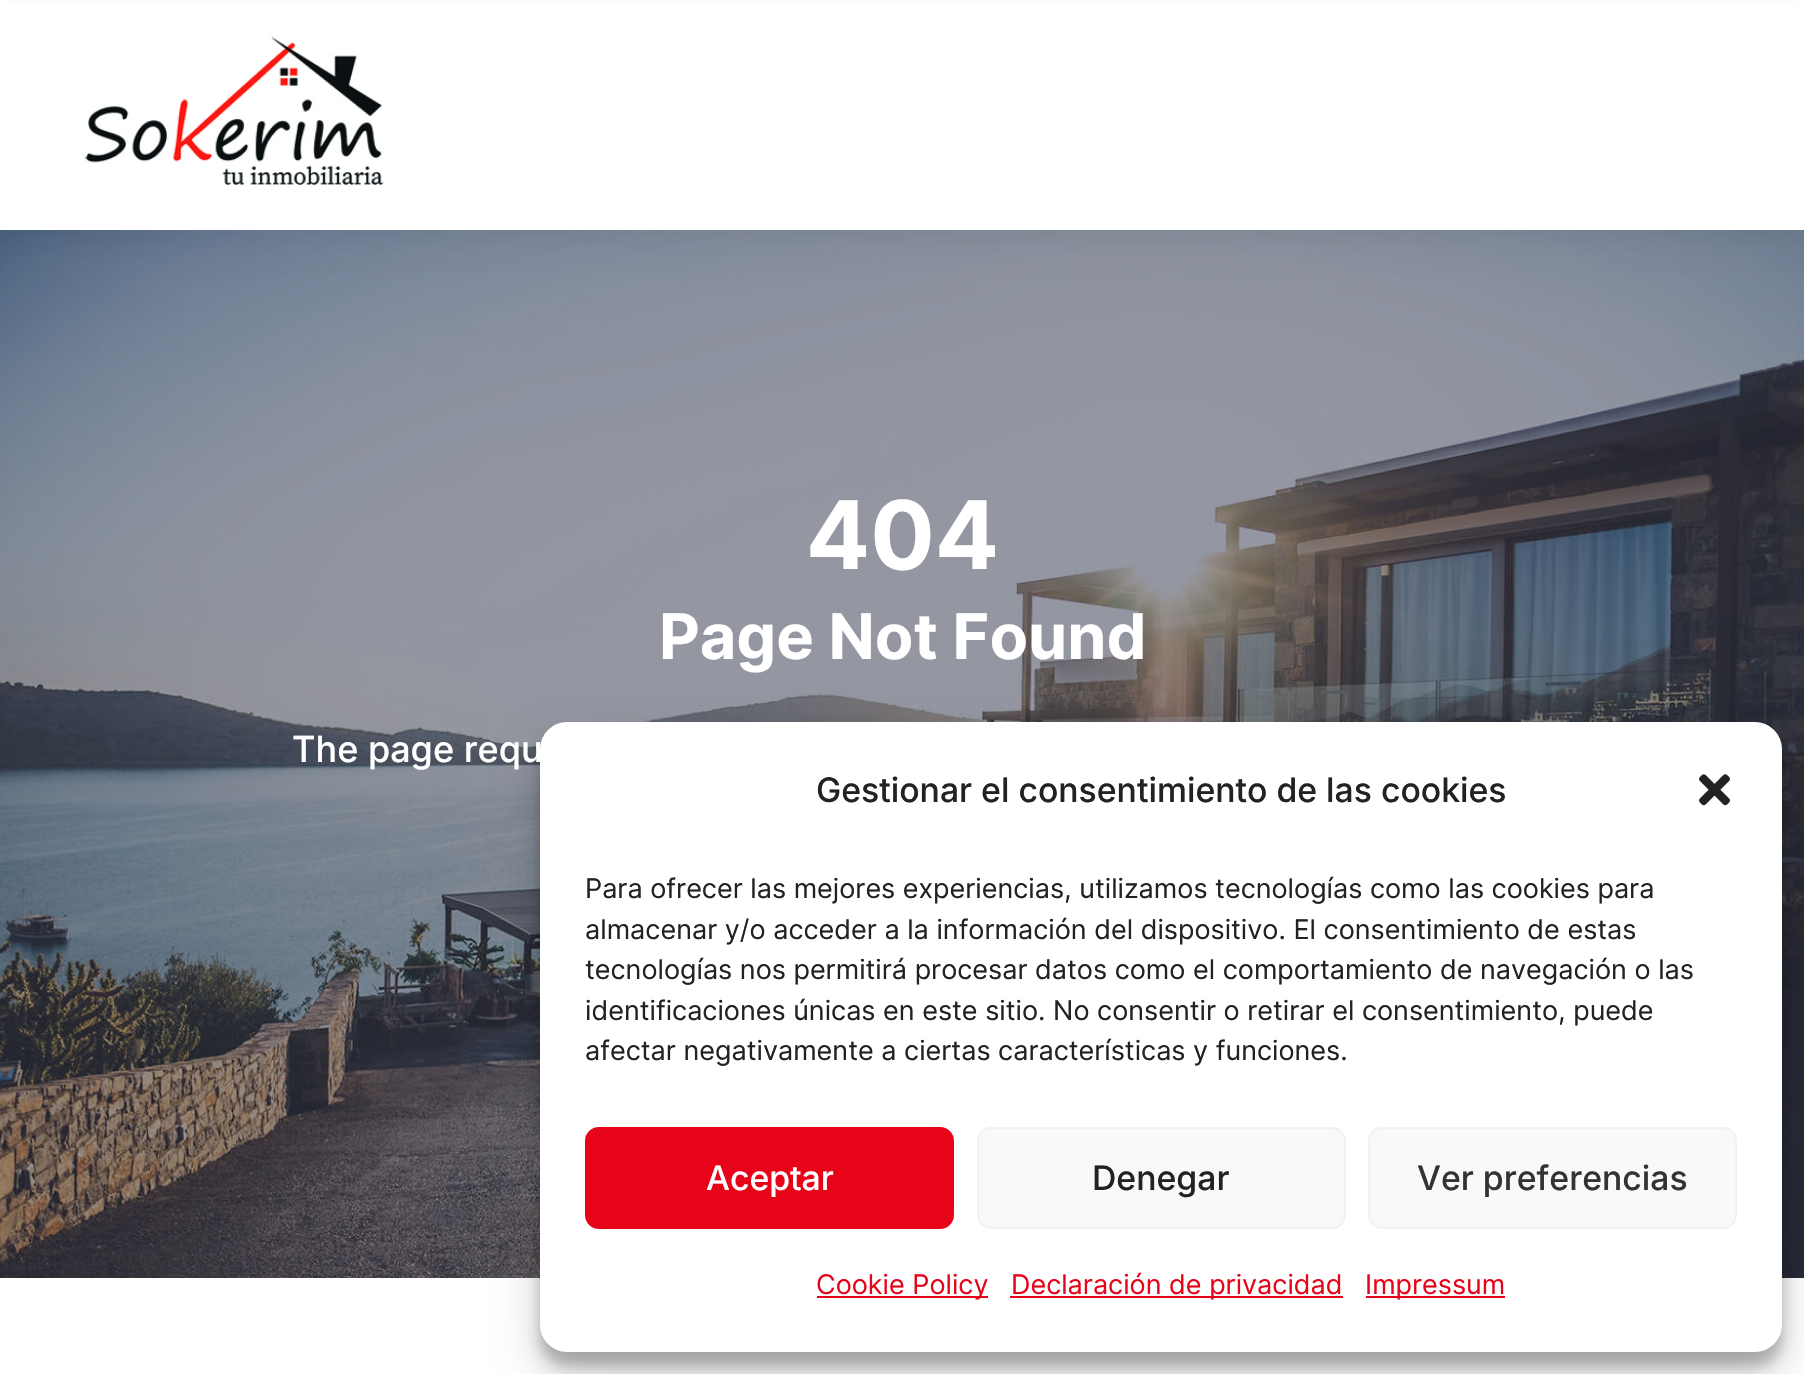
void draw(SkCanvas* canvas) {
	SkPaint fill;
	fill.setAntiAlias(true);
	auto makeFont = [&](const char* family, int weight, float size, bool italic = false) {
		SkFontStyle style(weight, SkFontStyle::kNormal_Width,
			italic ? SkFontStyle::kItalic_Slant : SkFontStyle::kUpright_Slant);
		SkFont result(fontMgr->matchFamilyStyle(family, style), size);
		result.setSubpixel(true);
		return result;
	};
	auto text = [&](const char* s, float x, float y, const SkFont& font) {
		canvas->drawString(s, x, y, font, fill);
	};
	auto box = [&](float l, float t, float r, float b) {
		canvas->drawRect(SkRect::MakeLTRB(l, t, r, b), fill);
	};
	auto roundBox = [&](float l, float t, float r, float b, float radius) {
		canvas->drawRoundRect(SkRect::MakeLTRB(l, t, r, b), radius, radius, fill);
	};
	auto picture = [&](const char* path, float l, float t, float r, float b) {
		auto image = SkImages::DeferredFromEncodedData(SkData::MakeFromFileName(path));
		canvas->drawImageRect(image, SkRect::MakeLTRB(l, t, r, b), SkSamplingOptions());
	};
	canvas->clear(0xFFFFFFFF);
	picture("image1.png", 0, 230, 1804, 1278);
	fill.setColor(0x0D000000);
	fill.setMaskFilter(SkMaskFilter::MakeBlur(kNormal_SkBlurStyle, 11));
	canvas->drawRect(SkRect::MakeLTRB(0, 11, 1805, 241), fill);
	fill.setMaskFilter(nullptr);
	fill.setColor(0xFFFFFFFF);
	box(0, 2, 1804, 230);
	picture("image0.png", 84, 36, 384, 186);
	fill.setColor(0x3B000000);
	fill.setMaskFilter(SkMaskFilter::MakeBlur(kNormal_SkBlurStyle, 7));
	canvas->drawRoundRect(SkRect::MakeLTRB(540, 736, 1782, 1366), 27, 27, fill);
	fill.setMaskFilter(nullptr);
	fill.setColor(0x30000000);
	fill.setMaskFilter(SkMaskFilter::MakeBlur(kNormal_SkBlurStyle, 22.5f));
	canvas->drawRoundRect(SkRect::MakeLTRB(540, 745, 1782, 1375), 27, 27, fill);
	fill.setMaskFilter(nullptr);
	fill.setColor(0xFFFFFFFF);
	roundBox(540, 722, 1782, 1352, 27);
	picture("image2.png", 1699, 774, 1730, 806);
	fill.setColor(0xFFE70418);
	canvas->drawRoundRect(SkRect::MakeLTRB(586, 1128, 953, 1228), 13, 13, fill);
	fill.setStyle(SkPaint::kStroke_Style);
	fill.setStrokeWidth(2);
	canvas->drawRoundRect(SkRect::MakeLTRB(586, 1128, 953, 1228), 13, 13, fill);
	fill.setStyle(SkPaint::kFill_Style);
	fill.setColor(0xFFF9F9F9);
	canvas->drawRoundRect(SkRect::MakeLTRB(978, 1128, 1345, 1228), 13, 13, fill);
	fill.setStyle(SkPaint::kStroke_Style);
	fill.setColor(0xFFF2F2F2);
	canvas->drawRoundRect(SkRect::MakeLTRB(978, 1128, 1345, 1228), 13, 13, fill);
	fill.setStyle(SkPaint::kFill_Style);
	fill.setColor(0xFFF9F9F9);
	canvas->drawRoundRect(SkRect::MakeLTRB(1369, 1128, 1736, 1228), 13, 13, fill);
	fill.setStyle(SkPaint::kStroke_Style);
	fill.setColor(0xFFF2F2F2);
	canvas->drawRoundRect(SkRect::MakeLTRB(1369, 1128, 1736, 1228), 13, 13, fill);
	fill.setStyle(SkPaint::kFill_Style);
	fill.setColor(0xFFE70418);
	box(817, 1296, 988, 1298);
	box(1010, 1296, 1343, 1298);
	box(1366, 1296, 1505, 1298);
	auto font1 = makeFont("Inter", 700, 94.5f);
	fill.setColor(0xFFFFFFFF);
	text("404", 806, 569, font1);
	auto font2 = makeFont("Inter", 700, 63);
	text("Page Not Found", 659, 659, font2);
	auto font3 = makeFont("Inter", 500, 36);
	text("The page requ", 292, 762, font3);
	auto font4 = makeFont("Inter", 500, 33.75f);
	fill.setColor(0xFF222222);
	text("Gestionar el consentimiento de las cookies", 816, 802, font4);
	auto font5 = makeFont("Inter", 400, 27);
	text("Para ofrecer las mejores experiencias, utilizamos tecnologías como las cookies para", 585, 898, font5);
	text("almacenar y/o acceder a la información del dispositivo. El consentimiento de estas", 585, 939, font5);
	text("tecnologías nos permitirá procesar datos como el comportamiento de navegación o las", 585, 979, font5);
	text("identificaciones únicas en este sitio. No consentir o retirar el consentimiento, puede", 585, 1020, font5);
	text("afectar negativamente a ciertas características y funciones.", 585, 1060, font5);
	fill.setColor(0xFFFFFFFF);
	text("Aceptar", 706, 1190, font4);
	fill.setColor(0xFF222222);
	text("Denegar", 1092, 1190, font4);
	fill.setColor(0xFF333333);
	text("Ver preferencias", 1417, 1190, font4);
	fill.setColor(0xFFE70418);
	text("Cookie Policy", 816, 1294, font5);
	text("Declaración de privacidad", 1011, 1294, font5);
	text("Impressum", 1365, 1294, font5);
}
